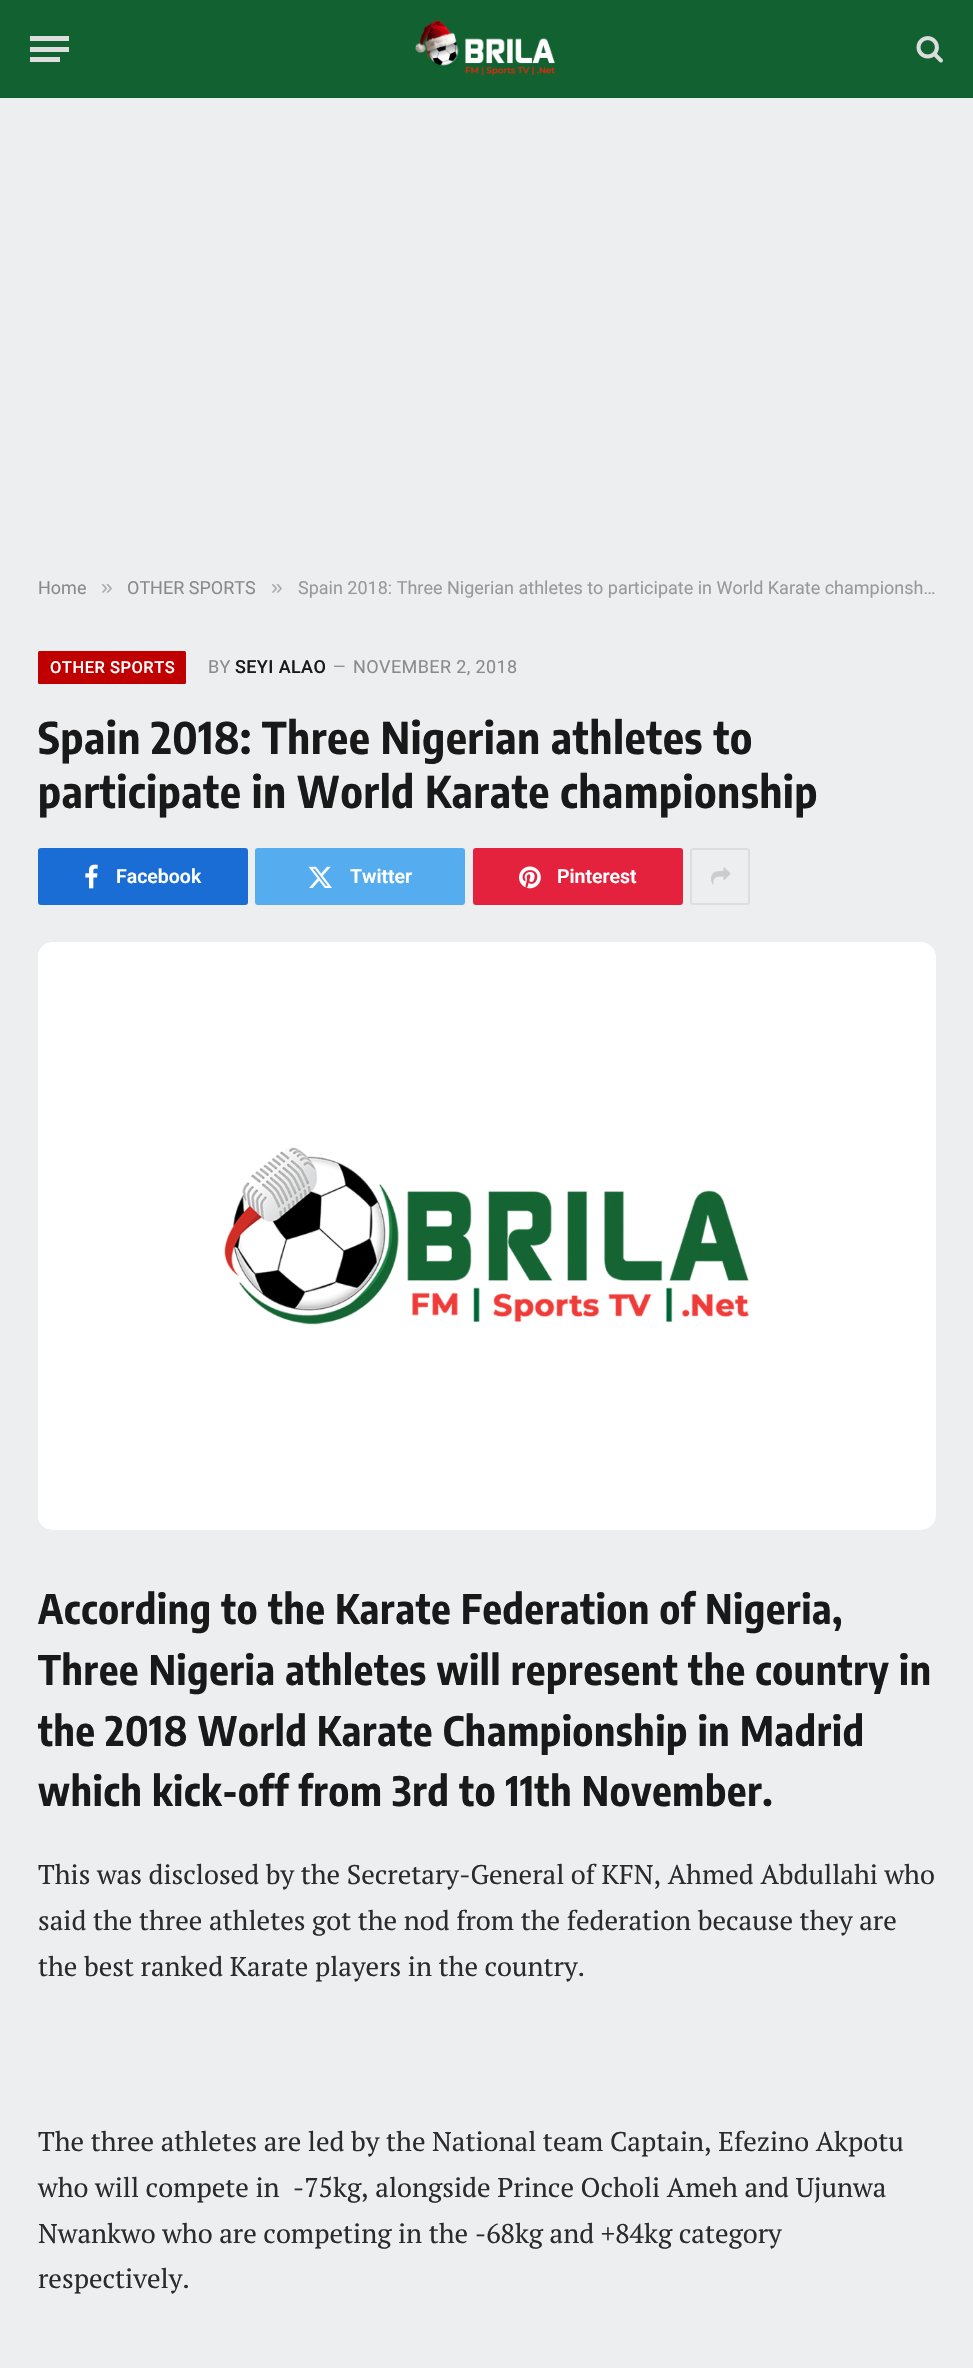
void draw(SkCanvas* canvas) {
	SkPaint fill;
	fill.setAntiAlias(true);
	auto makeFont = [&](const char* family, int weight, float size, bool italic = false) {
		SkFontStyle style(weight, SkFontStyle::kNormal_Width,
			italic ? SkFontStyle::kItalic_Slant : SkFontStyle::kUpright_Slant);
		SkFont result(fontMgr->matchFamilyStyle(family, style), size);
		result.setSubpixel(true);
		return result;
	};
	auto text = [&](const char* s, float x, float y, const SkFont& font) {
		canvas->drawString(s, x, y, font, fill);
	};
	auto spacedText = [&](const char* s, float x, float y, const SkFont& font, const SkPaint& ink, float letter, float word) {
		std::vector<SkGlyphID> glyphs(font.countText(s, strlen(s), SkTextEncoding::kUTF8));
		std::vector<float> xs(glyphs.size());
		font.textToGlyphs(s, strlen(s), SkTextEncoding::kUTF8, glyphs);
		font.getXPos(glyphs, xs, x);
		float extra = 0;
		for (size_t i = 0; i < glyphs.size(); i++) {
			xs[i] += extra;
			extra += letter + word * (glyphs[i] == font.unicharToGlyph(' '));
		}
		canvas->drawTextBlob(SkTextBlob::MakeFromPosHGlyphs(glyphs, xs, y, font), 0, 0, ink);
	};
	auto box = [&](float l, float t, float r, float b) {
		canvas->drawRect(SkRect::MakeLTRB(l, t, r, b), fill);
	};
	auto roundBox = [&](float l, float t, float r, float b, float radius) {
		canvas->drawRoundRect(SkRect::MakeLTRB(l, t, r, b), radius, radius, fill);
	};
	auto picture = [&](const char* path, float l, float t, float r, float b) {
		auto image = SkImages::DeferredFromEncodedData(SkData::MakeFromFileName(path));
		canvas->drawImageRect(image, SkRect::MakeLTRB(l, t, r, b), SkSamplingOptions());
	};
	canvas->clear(0xFFEDEEF0);
	fill.setColor(0xFF126231);
	box(0, 0, 973, 98);
	fill.setColor(0xFFDDDDDD);
	box(30, 57, 60, 62);
	box(30, 36, 69, 41);
	box(30, 47, 69, 52);
	picture("image0.png", 415, 20, 555, 76);
	picture("image1.png", 916, 36, 943, 63);
	fill.setColor(0xFFC00000);
	roundBox(38, 651, 186, 684, 1.5f);
	fill.setColor(0xFF1A6DD4);
	roundBox(38, 848, 248, 905, 3);
	picture("image2.png", 85, 864, 98, 889);
	fill.setColor(0xFF55ACEF);
	roundBox(255, 848, 465, 905, 3);
	picture("image3.png", 308, 866, 332, 888);
	fill.setColor(0xFFE4223E);
	roundBox(473, 848, 683, 905, 3);
	picture("image4.png", 519, 866, 541, 889);
	fill.setStyle(SkPaint::kStroke_Style);
	fill.setStrokeWidth(2);
	fill.setColor(0xFFDDDDDD);
	canvas->drawRoundRect(SkRect::MakeLTRB(691, 849, 749, 904), 2, 2, fill);
	picture("image5.png", 711, 867, 731, 885);
	picture("image6.png", 38, 942, 936, 1530);
	auto font1 = makeFont("Roboto", 400, 18);
	fill.setStyle(SkPaint::kFill_Style);
	fill.setColor(0xFF8A8A8A);
	text("Home", 38, 594, font1);
	auto font2 = makeFont("Liberation Sans", 400, 21);
	fill.setColor(0xFFAAAAAA);
	text("»", 101, 594, font2);
	fill.setColor(0xFF8A8A8A);
	text("OTHER SPORTS", 127, 594, font1);
	fill.setColor(0xFFAAAAAA);
	text("»", 271, 594, font2);
	fill.setColor(0xFF999999);
	text("Spain 2018: Three Nigerian athletes to participate in World Karate championsh…", 298, 594, font1);
	auto font3 = makeFont("Roboto", 500, 16.5f);
	fill.setColor(0xFFFFFFFF);
	spacedText("OTHER SPORTS", 50, 673, font3, fill, 0.5f, 0);
	fill.setColor(0xFF8A8A8A);
	spacedText("BY", 208, 673, font1, fill, 0.4f, 0);
	auto font4 = makeFont("Roboto", 500, 18);
	fill.setColor(0xFF191919);
	spacedText("SEYI ALAO", 235, 673, font4, fill, 0.4f, 0);
	auto font5 = makeFont("Roboto", 400, 16);
	fill.setColor(0xFF8A8A8A);
	text("—", 333, 672, font5);
	spacedText("NOVEMBER 2, 2018", 353, 673, font1, fill, 0.4f, 0);
	auto font6 = makeFont("Encode Sans Condensed", 700, 43.5f);
	fill.setColor(0xFF191919);
	spacedText("Spain 2018: Three Nigerian athletes to", 38, 754, font6, fill, 0.85f, 0);
	spacedText("participate in World Karate championship", 38, 808, font6, fill, 0.85f, 0);
	auto font7 = makeFont("Roboto", 600, 19.5f);
	fill.setColor(0xFFFFFFFF);
	text("Facebook", 116, 883, font7);
	text("Twitter", 350, 883, font7);
	text("Pinterest", 557, 883, font7);
	auto font8 = makeFont("Encode Sans Condensed", 700, 40.5f);
	fill.setColor(0xFF191919);
	spacedText("According to the Karate Federation of Nigeria,", 38, 1624, font8, fill, 0.8f, 0);
	spacedText("Three Nigeria athletes will represent the country in", 38, 1685, font8, fill, 0.8f, 0);
	spacedText("the 2018 World Karate Championship in Madrid", 38, 1746, font8, fill, 0.8f, 0);
	spacedText("which kick-off from 3rd to 11th November.", 38, 1806, font8, fill, 0.8f, 0);
	auto font9 = makeFont("PT Serif", 400, 27);
	fill.setColor(0xFF2B2B2B);
	text("This was disclosed by the Secretary-General of KFN, Ahmed Abdullahi who", 38, 1884, font9);
	text("said the three athletes got the nod from the federation because they are", 38, 1930, font9);
	text("the best ranked Karate players in the country.", 38, 1976, font9);
	text("The three athletes are led by the National team Captain, Efezino Akpotu", 38, 2151, font9);
	text("who will compete in  -75kg, alongside Prince Ocholi Ameh and Ujunwa", 38, 2197, font9);
	text("Nwankwo who are competing in the -68kg and +84kg category", 38, 2243, font9);
	text("respectively.", 38, 2288, font9);
}
